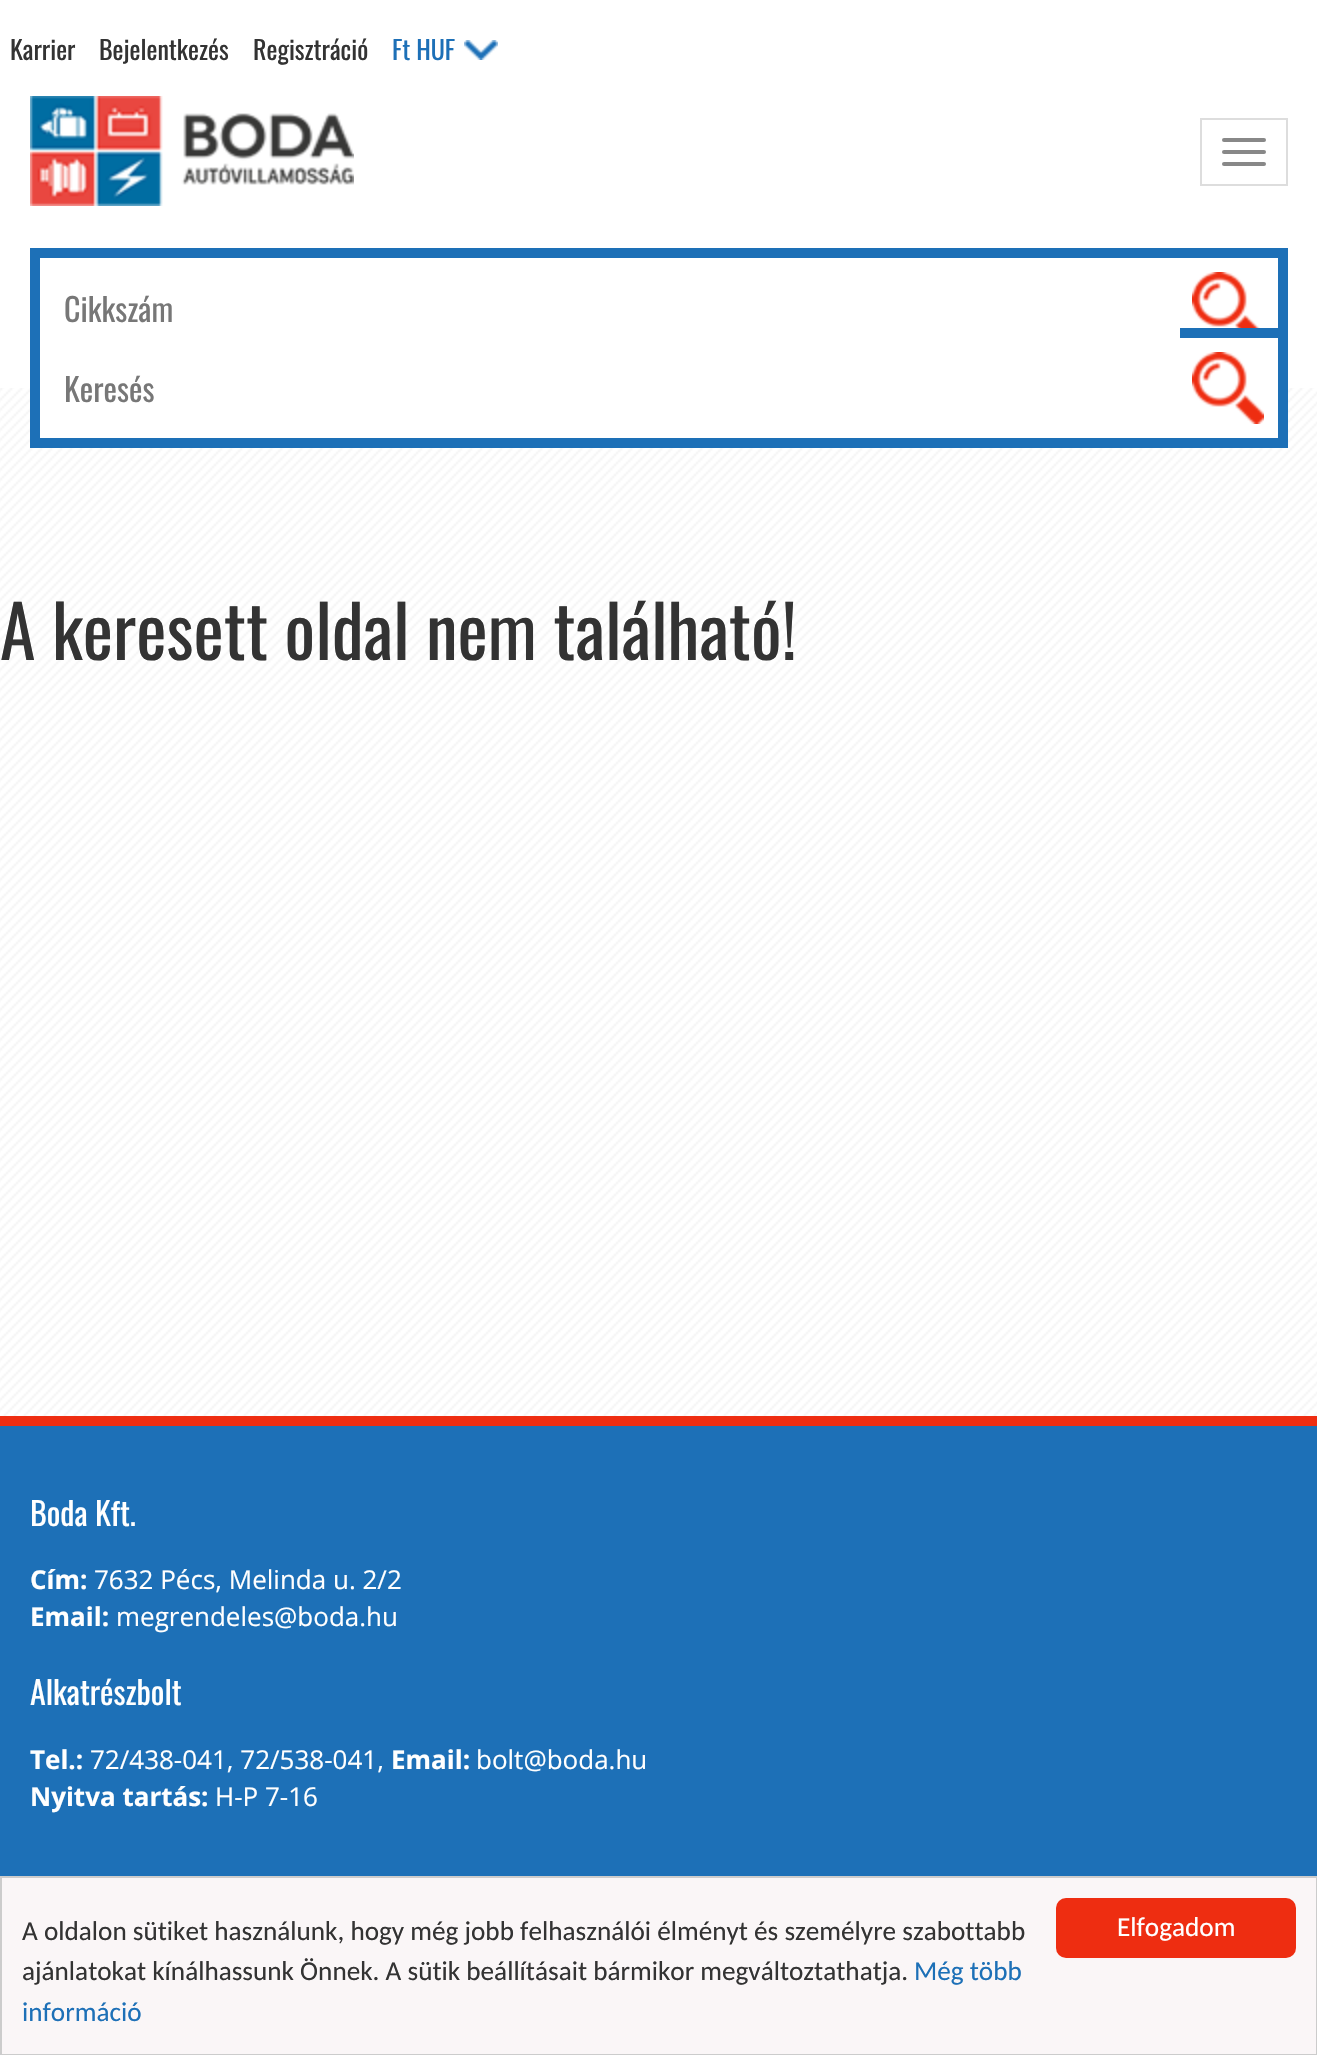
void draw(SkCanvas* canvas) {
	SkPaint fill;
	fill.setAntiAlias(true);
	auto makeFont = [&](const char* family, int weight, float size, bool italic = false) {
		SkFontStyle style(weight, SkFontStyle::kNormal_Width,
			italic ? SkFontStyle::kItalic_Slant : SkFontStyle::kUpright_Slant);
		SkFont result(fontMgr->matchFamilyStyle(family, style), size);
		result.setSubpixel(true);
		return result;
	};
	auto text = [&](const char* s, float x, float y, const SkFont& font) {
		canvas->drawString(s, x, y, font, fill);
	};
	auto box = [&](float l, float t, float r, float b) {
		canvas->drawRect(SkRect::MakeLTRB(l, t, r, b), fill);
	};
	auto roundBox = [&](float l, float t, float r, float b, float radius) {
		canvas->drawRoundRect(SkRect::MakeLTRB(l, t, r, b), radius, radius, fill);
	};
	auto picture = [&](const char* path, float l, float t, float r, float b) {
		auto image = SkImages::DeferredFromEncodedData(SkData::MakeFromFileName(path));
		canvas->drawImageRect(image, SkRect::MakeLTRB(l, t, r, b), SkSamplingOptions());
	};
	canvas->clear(0xFFFFFFFF);
	picture("image0.png", 0, 388, 1317, 1416);
	picture("image1.png", 464, 40, 498, 60);
	picture("image2.png", 30, 96, 354, 206);
	fill.setStyle(SkPaint::kStroke_Style);
	fill.setStrokeWidth(2);
	fill.setColor(0xFFDDDDDD);
	canvas->drawRect(SkRect::MakeLTRB(1201, 119, 1287, 185), fill);
	fill.setStyle(SkPaint::kFill_Style);
	fill.setColor(0xFF888888);
	roundBox(1222, 138, 1266, 142, 2);
	roundBox(1222, 150, 1266, 154, 2);
	roundBox(1222, 162, 1266, 166, 2);
	fill.setStyle(SkPaint::kStroke_Style);
	fill.setStrokeWidth(10);
	fill.setColor(0xFF1D70B7);
	canvas->drawRect(SkRect::MakeLTRB(35, 253, 1283, 363), fill);
	canvas->drawRect(SkRect::MakeLTRB(35, 333, 1283, 443), fill);
	fill.setStyle(SkPaint::kFill_Style);
	fill.setColor(0xFFFFFFFF);
	box(40, 328, 1180, 338);
	picture("image3.png", 1192, 272, 1260, 328);
	box(40, 358, 1278, 438);
	picture("image4.png", 1192, 352, 1264, 424);
	fill.setColor(0xFF1D70B7);
	box(0, 1426, 1317, 1876);
	fill.setColor(0xFFEE2D11);
	box(0, 1416, 1317, 1426);
	fill.setColor(0xFFFAF6F7);
	canvas->drawRect(SkRect::MakeLTRB(1, 1877, 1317, 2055), fill);
	fill.setStyle(SkPaint::kStroke_Style);
	fill.setStrokeWidth(2);
	fill.setColor(0xFFCCCCCC);
	canvas->drawRect(SkRect::MakeLTRB(1, 1877, 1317, 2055), fill);
	fill.setStyle(SkPaint::kFill_Style);
	fill.setColor(0xFFEE2D11);
	roundBox(1056, 1898, 1296, 1958, 10);
	auto font1 = makeFont("Oswald", 400, 26);
	fill.setColor(0xFF333333);
	text("Karrier", 10, 60, font1);
	text("Bejelentkezés", 99, 60, font1);
	text("Regisztráció", 253, 60, font1);
	fill.setColor(0xFF1D70B7);
	text("Ft HUF", 392, 60, font1);
	auto font2 = makeFont("Oswald", 400, 32);
	fill.setColor(0xFF777777);
	text("Cikkszám", 64, 322, font2);
	text("Keresés", 64, 402, font2);
	auto font3 = makeFont("Oswald", 400, 72);
	fill.setColor(0xFF333333);
	text("A keresett oldal nem található!", 0, 660, font3);
	fill.setColor(0xFFFFFFFF);
	text("Boda Kft.", 30, 1526, font2);
	auto font4 = makeFont("Open Sans", 700, 26);
	text("Cím:", 30, 1589, font4);
	auto font5 = makeFont("Open Sans", 400, 26);
	text("7632 Pécs, Melinda u. 2/2", 94, 1589, font5);
	text("Email:", 30, 1626, font4);
	text("megrendeles@boda.hu", 116, 1626, font5);
	text("Alkatrészbolt", 30, 1705, font2);
	text("Tel.:", 30, 1769, font4);
	text("72/438-041, 72/538-041,", 90, 1769, font5);
	text("Email:", 391, 1769, font4);
	text("bolt@boda.hu", 476, 1769, font5);
	text("Nyitva tartás:", 30, 1806, font4);
	text("H-P 7-16", 215, 1806, font5);
	auto font6 = makeFont("Carlito", 400, 27.2f);
	fill.setColor(0xFF333333);
	text("A oldalon sütiket használunk, hogy még jobb felhasználói élményt és személyre szabottabb", 22, 1940, font6);
	text("ajánlatokat kínálhassunk Önnek. A sütik beállításait bármikor megváltoztathatja.", 22, 1980, font6);
	fill.setColor(0xFF1D70B7);
	text("Még több", 914, 1980, font6);
	text("információ", 22, 2021, font6);
	fill.setColor(0xFFFFFFFF);
	text("Elfogadom", 1117, 1936, font6);
}
